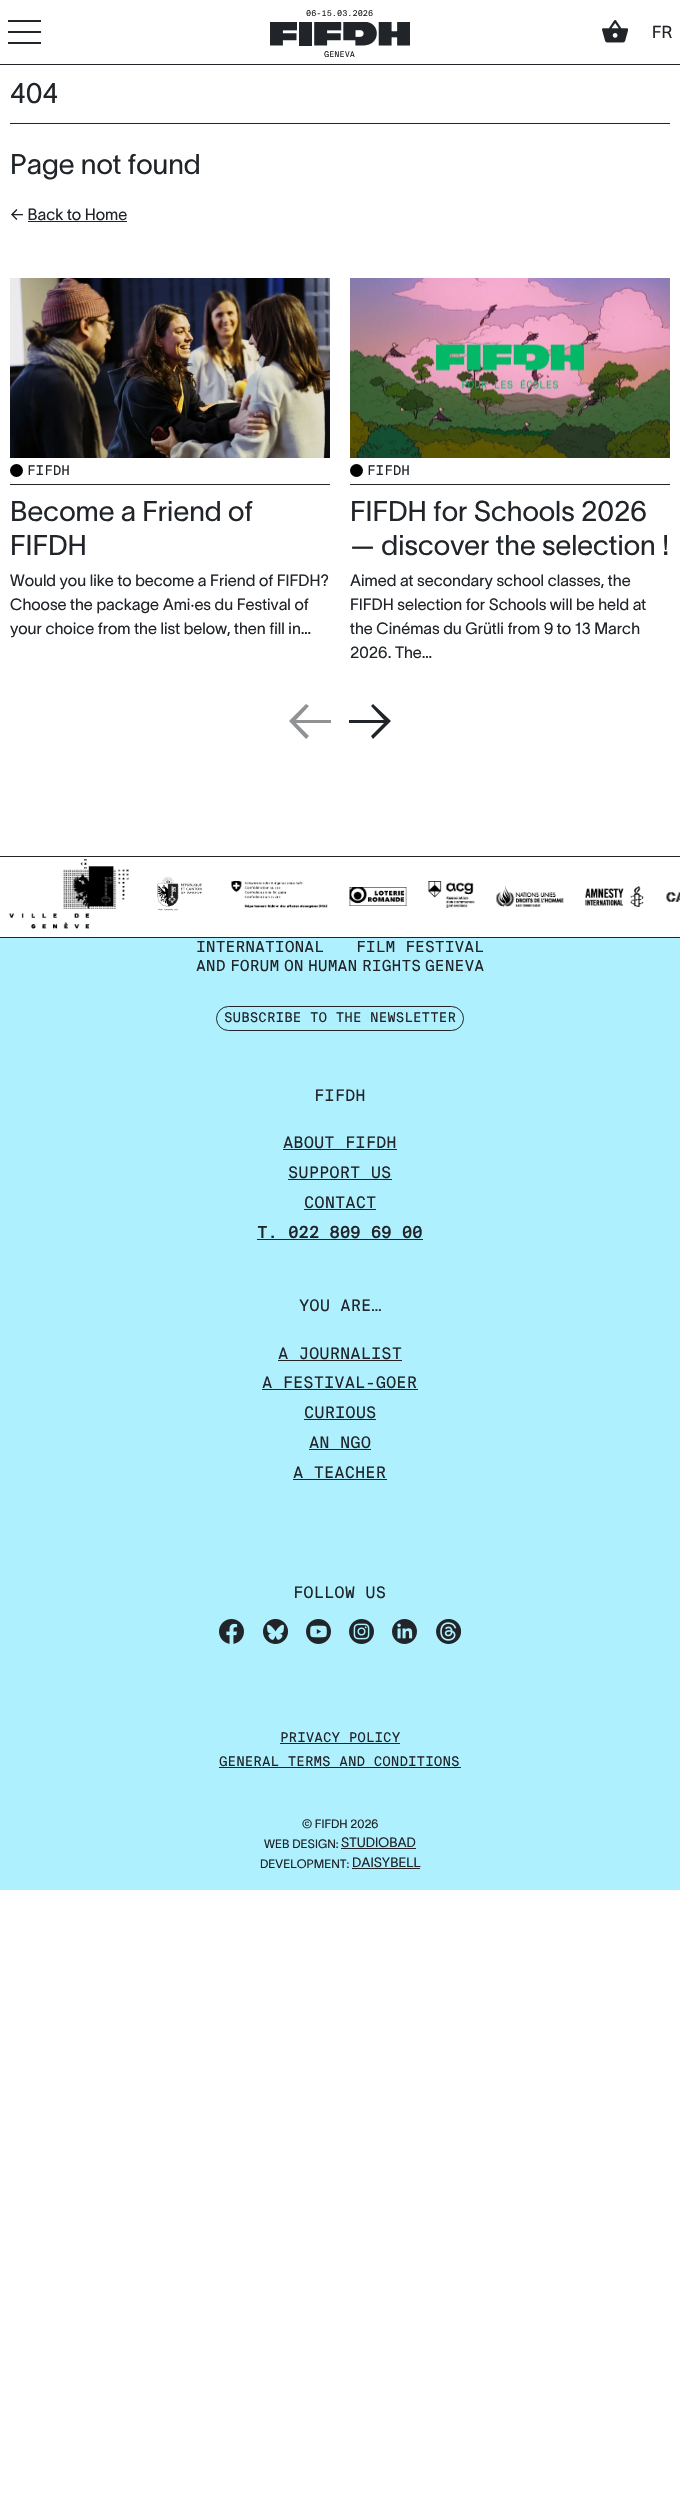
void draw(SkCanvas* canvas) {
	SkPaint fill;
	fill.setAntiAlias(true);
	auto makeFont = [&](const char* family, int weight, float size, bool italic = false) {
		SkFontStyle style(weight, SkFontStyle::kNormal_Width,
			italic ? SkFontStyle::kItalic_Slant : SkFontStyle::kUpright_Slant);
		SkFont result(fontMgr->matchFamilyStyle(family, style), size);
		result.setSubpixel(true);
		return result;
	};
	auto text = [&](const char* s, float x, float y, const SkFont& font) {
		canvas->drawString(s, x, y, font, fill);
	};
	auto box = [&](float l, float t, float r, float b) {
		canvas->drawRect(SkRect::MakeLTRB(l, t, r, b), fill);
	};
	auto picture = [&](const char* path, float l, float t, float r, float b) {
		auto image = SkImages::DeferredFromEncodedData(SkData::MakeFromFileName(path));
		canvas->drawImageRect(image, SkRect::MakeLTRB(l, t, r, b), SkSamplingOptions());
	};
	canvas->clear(0xFFFFFFFF);
	fill.setColor(0xFF212529);
	box(0, 64, 680, 65);
	box(8, 20, 41, 22);
	box(8, 31, 41, 33);
	box(8, 42, 41, 44);
	picture("image0.png", 270, 22, 410, 46);
	picture("image1.png", 602, 20, 628, 43);
	box(10, 123, 670, 124);
	box(28, 221, 127, 222);
	picture("image2.png", 10, 278, 330, 458);
	box(10, 484, 330, 485);
	fill.setColor(0xFF000000);
	canvas->drawCircle(16.5f, 470.5f, 6.5f, fill);
	picture("image3.png", 350, 278, 670, 458);
	fill.setColor(0xFF212529);
	box(350, 484, 670, 485);
	fill.setColor(0xFF000000);
	canvas->drawCircle(356.5f, 470.5f, 6.5f, fill);
	fill.setColor(0xFF909294);
	canvas->drawPath(SkPathBuilder().moveTo(306, 739).lineTo(309, 736).lineTo(296, 723).lineTo(331, 723).lineTo(331, 720).lineTo(296, 720).lineTo(309, 706).lineTo(306, 704).lineTo(289, 721).close().detach(), fill);
	fill.setColor(0xFF212529);
	canvas->drawPath(SkPathBuilder().moveTo(373, 704).lineTo(371, 706).lineTo(384, 720).lineTo(349, 720).lineTo(349, 723).lineTo(384, 723).lineTo(371, 736).lineTo(373, 739).lineTo(391, 721).close().detach(), fill);
	box(0, 856, 680, 857);
	box(0, 937, 680, 938);
	picture("image4.png", 9, 859, 129, 929);
	picture("image5.png", 157, 876, 202, 911);
	picture("image6.png", 231, 881, 328, 908);
	picture("image7.png", 349, 887, 407, 906);
	picture("image8.png", 428, 881, 475, 908);
	picture("image9.png", 496, 886, 564, 907);
	picture("image10.png", 585, 886, 644, 907);
	picture("image11.png", 666, 892, 680, 902);
	fill.setColor(0xFFAFF0FF);
	box(0, 938, 680, 1890);
	fill.setStyle(SkPaint::kStroke_Style);
	fill.setStrokeWidth(1);
	fill.setColor(0xFF212529);
	canvas->drawRoundRect(SkRect::MakeLTRB(216.5f, 1006.5f, 463.5f, 1030.5f), 12, 12, fill);
	fill.setStyle(SkPaint::kFill_Style);
	box(283, 1149, 397, 1150);
	box(288, 1179, 392, 1180);
	box(304, 1209, 376, 1210);
	box(257, 1239, 423, 1240);
	box(278, 1360, 402, 1361);
	box(262, 1389, 418, 1390);
	box(304, 1419, 376, 1420);
	box(309, 1449, 371, 1450);
	box(293, 1479, 387, 1480);
	picture("image12.png", 219, 1619, 244, 1644);
	picture("image13.png", 263, 1619, 288, 1644);
	picture("image14.png", 306, 1619, 331, 1644);
	picture("image15.png", 349, 1619, 374, 1644);
	picture("image16.png", 392, 1619, 417, 1644);
	picture("image17.png", 436, 1619, 461, 1644);
	box(280, 1743, 400, 1744);
	box(219, 1767, 461, 1768);
	box(341, 1848, 416, 1849);
	box(352, 1868, 420, 1869);
	auto font1 = makeFont("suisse", 400, 8);
	text("06-15.03.2026", 306, 16, font1);
	text("GENEVA", 324, 57, font1);
	auto font2 = makeFont("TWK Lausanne", 300, 17);
	text("FR", 652, 38, font2);
	auto font3 = makeFont("TWK Lausanne", 300, 28.1f);
	text("404", 10, 103, font3);
	text("Page not found", 10, 174, font3);
	auto font4 = makeFont("TWK Lausanne", 300, 16);
	text("← Back to Home", 10, 220, font4);
	auto font5 = makeFont("suisse", 400, 13.3f);
	text("FIFDH", 27, 475, font5);
	text("Become a Friend of", 10, 521, font3);
	text("FIFDH", 10, 555, font3);
	text("Would you like to become a Friend of FIFDH?", 10, 586, font4);
	text("Choose the package Ami·es du Festival of", 10, 610, font4);
	text("your choice from the list below, then fill in…", 10, 634, font4);
	text("FIFDH", 367, 475, font5);
	text("FIFDH for Schools 2026", 350, 521, font3);
	text("— discover the selection !", 350, 555, font3);
	text("Aimed at secondary school classes, the", 350, 586, font4);
	text("FIFDH selection for Schools will be held at", 350, 610, font4);
	text("the Cinémas du Grütli from 9 to 13 March", 350, 634, font4);
	text("2026. The…", 350, 658, font4);
	auto font6 = makeFont("suisse", 400, 15.25f);
	text("INTERNATIONAL", 196, 952, font6);
	text("FILM FESTIVAL", 356, 952, font6);
	text("AND", 196, 971, font6);
	text("FORUM", 230, 971, font6);
	text("ON", 284, 971, font6);
	text("HUMAN", 308, 971, font6);
	text("RIGHTS", 362, 971, font6);
	text("GENEVA", 425, 971, font6);
	text("SUBSCRIBE TO THE NEWSLETTER", 224, 1022, font5);
	auto font7 = makeFont("suisse", 400, 16);
	text("FIFDH", 314, 1101, font7);
	text("ABOUT FIFDH", 283, 1148, font7);
	text("SUPPORT US", 288, 1178, font7);
	text("CONTACT", 304, 1208, font7);
	auto font8 = makeFont("suisse", 700, 16);
	text("T. 022 809 69 00", 257, 1238, font8);
	text("YOU ARE…", 299, 1311, font7);
	text("A JOURNALIST", 278, 1359, font7);
	text("A FESTIVAL-GOER", 262, 1388, font7);
	text("CURIOUS", 304, 1418, font7);
	text("AN NGO", 309, 1448, font7);
	text("A TEACHER", 293, 1478, font7);
	text("FOLLOW US", 293, 1598, font7);
	text("PRIVACY POLICY", 280, 1742, font5);
	text("GENERAL TERMS AND CONDITIONS", 219, 1766, font5);
	auto font9 = makeFont("TWK Lausanne", 300, 12);
	text("© FIFDH 2026", 302, 1828, font9);
	text("WEB DESIGN:", 264, 1848, font9);
	auto font10 = makeFont("TWK Lausanne", 300, 13.3f);
	text("STUDIOBAD", 341, 1847, font10);
	text("DEVELOPMENT:", 260, 1868, font9);
	text("DAISYBELL", 352, 1867, font10);
}
